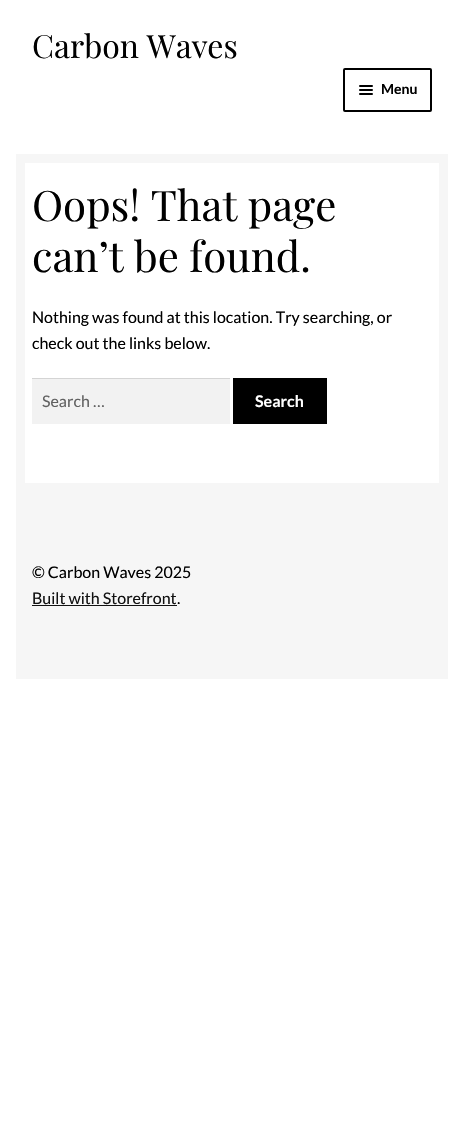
void draw(SkCanvas* canvas) {
	SkPaint fill;
	fill.setAntiAlias(true);
	auto makeFont = [&](const char* family, int weight, float size, bool italic = false) {
		SkFontStyle style(weight, SkFontStyle::kNormal_Width,
			italic ? SkFontStyle::kItalic_Slant : SkFontStyle::kUpright_Slant);
		SkFont result(fontMgr->matchFamilyStyle(family, style), size);
		result.setSubpixel(true);
		return result;
	};
	auto text = [&](const char* s, float x, float y, const SkFont& font) {
		canvas->drawString(s, x, y, font, fill);
	};
	auto box = [&](float l, float t, float r, float b) {
		canvas->drawRect(SkRect::MakeLTRB(l, t, r, b), fill);
	};
	auto roundBox = [&](float l, float t, float r, float b, float radius) {
		canvas->drawRoundRect(SkRect::MakeLTRB(l, t, r, b), radius, radius, fill);
	};
	canvas->clear(0xFFFFFFFF);
	fill.setStyle(SkPaint::kStroke_Style);
	fill.setStrokeWidth(2);
	fill.setColor(0xFF000000);
	canvas->drawRoundRect(SkRect::MakeLTRB(344, 69, 431, 111), 1, 1, fill);
	fill.setStyle(SkPaint::kFill_Style);
	roundBox(359, 85, 373, 87, 1);
	roundBox(359, 89, 373, 91, 1);
	roundBox(359, 93, 373, 95, 1);
	fill.setStyle(SkPaint::kStroke_Style);
	fill.setStrokeWidth(9);
	fill.setColor(0xFFF6F6F6);
	canvas->drawRect(SkRect::MakeLTRB(20.5f, 158.5f, 443.5f, 487.5f), fill);
	fill.setStyle(SkPaint::kFill_Style);
	fill.setColor(0xFFF2F2F2);
	box(32, 379, 230, 424);
	fill.setColor(0xFFD4D4D4);
	box(32, 378, 230, 379);
	fill.setColor(0xFF000000);
	box(233, 378, 327, 424);
	fill.setColor(0xFFF6F6F6);
	box(16, 492, 448, 679);
	fill.setColor(0xFF111111);
	box(32, 605, 177, 606);
	auto font1 = makeFont("Playfair Display", 400, 32);
	fill.setColor(0xFF000000);
	text("Carbon Waves", 32, 58, font1);
	auto font2 = makeFont("Lato", 700, 14);
	text("Menu", 381, 94, font2);
	auto font3 = makeFont("Playfair Display", 400, 42);
	text("Oops! That page", 32, 221, font3);
	text("can’t be found.", 32, 272, font3);
	auto font4 = makeFont("Lato", 400, 16);
	text("Nothing was found at this location. Try searching, or", 32, 323, font4);
	text("check out the links below.", 32, 349, font4);
	fill.setColor(0xFF616161);
	text("Search …", 42, 407, font4);
	auto font5 = makeFont("Lato", 700, 16);
	fill.setColor(0xFFFFFFFF);
	text("Search", 255, 407, font5);
	fill.setColor(0xFF000000);
	text("© Carbon Waves 2025", 32, 578, font4);
	fill.setColor(0xFF111111);
	text("Built with Storefront", 32, 604, font4);
	fill.setColor(0xFF000000);
	text(".", 177, 604, font4);
}
